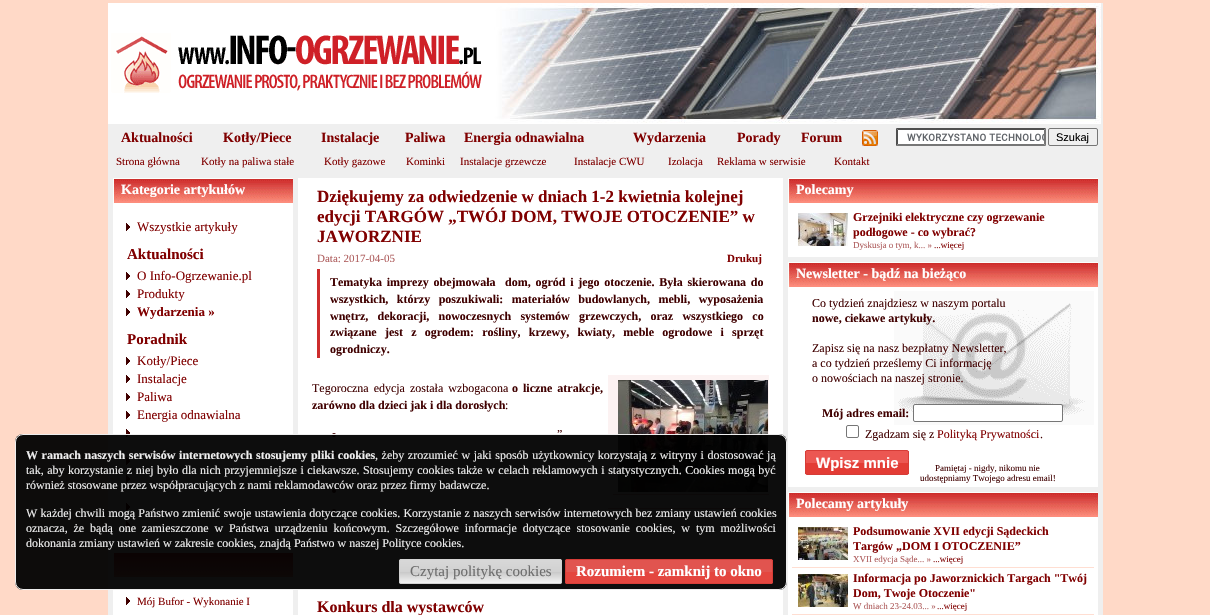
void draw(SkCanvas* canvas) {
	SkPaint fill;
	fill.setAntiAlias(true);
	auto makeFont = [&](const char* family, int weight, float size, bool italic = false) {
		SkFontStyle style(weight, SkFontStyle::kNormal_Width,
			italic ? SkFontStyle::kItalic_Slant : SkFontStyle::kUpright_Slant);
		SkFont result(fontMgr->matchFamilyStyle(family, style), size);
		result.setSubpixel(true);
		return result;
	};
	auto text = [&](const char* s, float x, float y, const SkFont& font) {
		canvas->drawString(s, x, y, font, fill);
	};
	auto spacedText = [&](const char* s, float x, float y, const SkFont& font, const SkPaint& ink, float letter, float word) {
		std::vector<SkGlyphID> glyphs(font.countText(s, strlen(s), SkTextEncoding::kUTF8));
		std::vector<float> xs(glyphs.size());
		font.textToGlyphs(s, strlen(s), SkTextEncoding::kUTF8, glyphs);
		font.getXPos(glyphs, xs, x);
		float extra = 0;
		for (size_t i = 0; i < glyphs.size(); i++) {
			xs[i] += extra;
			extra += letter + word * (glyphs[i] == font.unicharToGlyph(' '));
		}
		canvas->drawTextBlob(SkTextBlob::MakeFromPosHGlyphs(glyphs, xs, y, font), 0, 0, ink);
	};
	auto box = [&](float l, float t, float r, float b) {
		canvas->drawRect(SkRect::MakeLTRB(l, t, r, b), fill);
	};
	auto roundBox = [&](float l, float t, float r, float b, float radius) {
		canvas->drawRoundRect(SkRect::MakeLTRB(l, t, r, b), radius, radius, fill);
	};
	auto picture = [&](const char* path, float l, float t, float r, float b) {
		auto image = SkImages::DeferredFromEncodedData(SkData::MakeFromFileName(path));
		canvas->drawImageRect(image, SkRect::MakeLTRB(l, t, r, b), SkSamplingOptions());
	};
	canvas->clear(0xFFFFD9C7);
	fill.setColor(0xFFEFEFEF);
	box(108, 3, 1103, 615);
	picture("image0.png", 108, 3, 494, 124);
	picture("image1.png", 494, 3, 1101, 124);
	picture("image2.png", 862, 130, 878, 146);
	fill.setColor(0xFFFFFFFF);
	box(896, 128, 1046, 146);
	picture("image3.png", 907, 133, 1044, 141);
	fill.setColor(0xFF4F4F4F);
	canvas->drawPath(SkPathBuilder().moveTo(896, 128).lineTo(1046, 128).lineTo(1044, 130).lineTo(898, 130).close().detach(), fill);
	fill.setColor(0xFF767676);
	canvas->drawPath(SkPathBuilder().moveTo(1046, 128).lineTo(1046, 146).lineTo(1044, 144).lineTo(1044, 130).close().detach(), fill);
	canvas->drawPath(SkPathBuilder().moveTo(1046, 146).lineTo(896, 146).lineTo(898, 144).lineTo(1044, 144).close().detach(), fill);
	fill.setColor(0xFF4F4F4F);
	canvas->drawPath(SkPathBuilder().moveTo(896, 146).lineTo(896, 128).lineTo(898, 130).lineTo(898, 144).close().detach(), fill);
	fill.setStyle(SkPaint::kStroke_Style);
	fill.setStrokeWidth(1);
	fill.setColor(0xFF767676);
	canvas->drawRoundRect(SkRect::MakeLTRB(1048.5f, 128.5f, 1097.5f, 145.5f), 1.5f, 1.5f, fill);
	picture("image4.png", 113, 178, 293, 203);
	fill.setStyle(SkPaint::kFill_Style);
	fill.setColor(0xFFFFFFFF);
	box(113, 203, 293, 547);
	picture("image5.png", 126, 223, 130, 231);
	picture("image5.png", 126, 272, 130, 280);
	picture("image5.png", 126, 290, 130, 298);
	picture("image5.png", 126, 308, 130, 316);
	picture("image5.png", 126, 357, 130, 365);
	picture("image5.png", 126, 375, 130, 383);
	picture("image5.png", 126, 393, 130, 401);
	picture("image5.png", 126, 411, 130, 419);
	picture("image5.png", 126, 429, 130, 437);
	picture("image5.png", 126, 457, 130, 465);
	picture("image5.png", 126, 475, 130, 483);
	picture("image5.png", 126, 503, 130, 511);
	picture("image5.png", 126, 521, 130, 529);
	picture("image4.png", 113, 552, 293, 577);
	box(113, 577, 293, 615);
	picture("image5.png", 126, 597, 130, 605);
	box(298, 178, 783, 615);
	fill.setColor(0xFFCD2D2D);
	box(317, 269, 320, 358);
	fill.setColor(0xFFFCF2F2);
	box(608, 375, 769, 508);
	fill.setColor(0xFFECA3A3);
	box(608, 508, 769, 509);
	box(613, 494, 769, 495);
	picture("image6.png", 618, 380, 768, 492);
	fill.setColor(0xFF400000);
	canvas->drawCircle(334, 435, 2, fill);
	canvas->drawCircle(334, 454, 2, fill);
	canvas->drawCircle(334, 491, 2, fill);
	canvas->drawCircle(334, 511, 2, fill);
	picture("image7.png", 788, 178, 1098, 203);
	fill.setColor(0xFFFFFFFF);
	box(788, 203, 1098, 257);
	picture("image8.png", 798, 213, 848, 246);
	picture("image7.png", 788, 262, 1098, 287);
	box(788, 287, 1098, 487);
	picture("image9.png", 894, 291, 1094, 425);
	canvas->drawRoundRect(SkRect::MakeLTRB(913.5f, 404.5f, 1062.5f, 421.5f), 1.5f, 1.5f, fill);
	fill.setStyle(SkPaint::kStroke_Style);
	fill.setColor(0xFF767676);
	canvas->drawRoundRect(SkRect::MakeLTRB(913.5f, 404.5f, 1062.5f, 421.5f), 1.5f, 1.5f, fill);
	canvas->drawRoundRect(SkRect::MakeLTRB(846.5f, 425.5f, 858.5f, 437.5f), 1.5f, 1.5f, fill);
	fill.setStyle(SkPaint::kFill_Style);
	fill.setColor(0xFFEC5752);
	box(805, 451, 909, 463);
	fill.setColor(0xFFE33C35);
	box(805, 463, 909, 474);
	fill.setStyle(SkPaint::kStroke_Style);
	fill.setColor(0xFFD63C37);
	canvas->drawRoundRect(SkRect::MakeLTRB(805.5f, 450.5f, 908.5f, 474.5f), 1.5f, 1.5f, fill);
	picture("image7.png", 788, 492, 1098, 517);
	fill.setStyle(SkPaint::kFill_Style);
	fill.setColor(0xFFFFFFFF);
	box(788, 517, 1098, 615);
	picture("image10.png", 798, 527, 848, 560);
	fill.setColor(0xFFFFDED2);
	box(792, 567, 1094, 568);
	picture("image11.png", 798, 574, 848, 607);
	box(792, 614, 1094, 615);
	fill.setColor(0xF2000000);
	roundBox(15, 434, 787, 590, 8);
	fill.setStyle(SkPaint::kStroke_Style);
	fill.setColor(0xF2FAFAFA);
	canvas->drawRoundRect(SkRect::MakeLTRB(15.5f, 434.5f, 786.5f, 589.5f), 7.5f, 7.5f, fill);
	canvas->save();
	canvas->clipPath(SkPathBuilder().moveTo(401, 559).lineTo(560, 559).cubicTo(561, 559, 562, 560, 562, 561).lineTo(562, 582).cubicTo(562, 583, 561, 584, 560, 584).lineTo(401, 584).cubicTo(400, 584, 399, 583, 399, 582).lineTo(399, 561).cubicTo(399, 560, 400, 559, 401, 559).close().detach(), true);
	fill.setStyle(SkPaint::kFill_Style);
	{
		const SkColor colors[] = {0xF2E2E2E2, 0xF2DBDBDB, 0xF2D1D1D1, 0xF2FEFEFE};
		const float stops[] = {0, 0.5f, 0.51f, 1};
		const SkPoint ends[] = {{481, 537}, {481, 560}};
		fill.setShader(SkGradientShader::MakeLinear(ends, colors, stops, 4, SkTileMode::kClamp));
		fill.setAlpha(255);
	}
	box(399, 559, 562, 560);
	{
		const SkColor colors[] = {0xF2E2E2E2, 0xF2DBDBDB, 0xF2D1D1D1, 0xF2FEFEFE};
		const float stops[] = {0, 0.5f, 0.51f, 1};
		const SkPoint ends[] = {{481, 560}, {481, 583}};
		fill.setShader(SkGradientShader::MakeLinear(ends, colors, stops, 4, SkTileMode::kClamp));
		fill.setAlpha(255);
	}
	box(399, 560, 562, 583);
	{
		const SkColor colors[] = {0xFFE3E3E3, 0xFFDDDDDD, 0xFFD3D3D3, 0xFFFEFEFE};
		const float stops[] = {0, 0.5f, 0.51f, 1};
		const SkPoint ends[] = {{481, 583}, {481, 606}};
		fill.setShader(SkGradientShader::MakeLinear(ends, colors, stops, 4, SkTileMode::kClamp));
		fill.setAlpha(255);
	}
	box(399, 583, 562, 584);
	canvas->restore();
	fill.setStyle(SkPaint::kStroke_Style);
	fill.setShader(nullptr);
	fill.setColor(0xF2D1D1D1);
	canvas->drawRoundRect(SkRect::MakeLTRB(399.5f, 559.5f, 561.5f, 583.5f), 1.5f, 1.5f, fill);
	canvas->save();
	canvas->clipPath(SkPathBuilder().moveTo(567, 559).lineTo(771, 559).cubicTo(772, 559, 773, 560, 773, 561).lineTo(773, 582).cubicTo(773, 583, 772, 584, 771, 584).lineTo(567, 584).cubicTo(566, 584, 565, 583, 565, 582).lineTo(565, 561).cubicTo(565, 560, 566, 559, 567, 559).close().detach(), true);
	fill.setStyle(SkPaint::kFill_Style);
	fill.setColor(0xF2E33C35);
	box(565, 559, 773, 560);
	canvas->restore();
	fill.setColor(0xF2EC5752);
	box(565, 560, 773, 572);
	fill.setColor(0xFFE4463F);
	box(565, 572, 773, 583);
	canvas->save();
	canvas->clipPath(SkPathBuilder().moveTo(567, 559).lineTo(771, 559).cubicTo(772, 559, 773, 560, 773, 561).lineTo(773, 582).cubicTo(773, 583, 772, 584, 771, 584).lineTo(567, 584).cubicTo(566, 584, 565, 583, 565, 582).lineTo(565, 561).cubicTo(565, 560, 566, 559, 567, 559).close().detach(), true);
	fill.setColor(0xFFED5F5B);
	box(565, 583, 773, 584);
	canvas->restore();
	fill.setStyle(SkPaint::kStroke_Style);
	fill.setColor(0xF2D63C37);
	canvas->drawRoundRect(SkRect::MakeLTRB(565.5f, 559.5f, 772.5f, 583.5f), 1.5f, 1.5f, fill);
	auto font1 = makeFont("Liberation Serif", 700, 14);
	fill.setStyle(SkPaint::kFill_Style);
	fill.setColor(0xFF800000);
	text("Aktualności", 121, 142, font1);
	text("Kotły/Piece", 223, 142, font1);
	text("Instalacje", 321, 142, font1);
	text("Paliwa", 405, 142, font1);
	text("Energia odnawialna", 464, 142, font1);
	text("Wydarzenia", 633, 142, font1);
	text("Porady", 737, 142, font1);
	text("Forum", 801, 142, font1);
	auto font2 = makeFont("Liberation Sans", 400, 11);
	fill.setColor(0xFF000000);
	text("Szukaj", 1056, 141, font2);
	auto font3 = makeFont("Liberation Serif", 400, 11);
	fill.setColor(0xFF800000);
	text("Strona główna", 116, 165, font3);
	text("Kotły na paliwa stałe", 201, 165, font3);
	text("Kotły gazowe", 324, 165, font3);
	text("Kominki", 406, 165, font3);
	text("Instalacje grzewcze", 460, 165, font3);
	text("Instalacje CWU", 574, 165, font3);
	text("Izolacja", 668, 165, font3);
	text("Reklama w serwisie", 717, 165, font3);
	text("Kontakt", 834, 165, font3);
	fill.setColor(0xFFFFFFFF);
	text("Kategorie artykułów", 121, 194, font1);
	auto font4 = makeFont("Liberation Serif", 400, 13);
	fill.setColor(0xFF800000);
	text("Wszystkie artykuły", 137, 231, font4);
	auto font5 = makeFont("Liberation Serif", 700, 15);
	text("Aktualności", 127, 259, font5);
	text("O Info-Ogrzewanie.pl", 137, 280, font4);
	text("Produkty", 137, 298, font4);
	auto font6 = makeFont("Liberation Serif", 700, 13);
	text("Wydarzenia »", 137, 316, font6);
	text("Poradnik", 127, 344, font5);
	text("Kotły/Piece", 137, 365, font4);
	text("Instalacje", 137, 383, font4);
	text("Paliwa", 137, 401, font4);
	text("Energia odnawialna", 137, 419, font4);
	text("Mój Bufor - Wykonanie I", 137, 605, font3);
	auto font7 = makeFont("Liberation Serif", 700, 17);
	text("Dziękujemy za odwiedzenie w dniach 1-2 kwietnia kolejnej", 317, 202, font7);
	text("edycji TARGÓW „TWÓJ DOM, TWOJE OTOCZENIE” w", 317, 222, font7);
	text("JAWORZNIE", 317, 242, font7);
	fill.setColor(0xFFAF5E5E);
	text("Data: 2017-04-05", 317, 262, font3);
	auto font8 = makeFont("Liberation Serif", 700, 11);
	fill.setColor(0xFF800000);
	text("Drukuj", 727, 262, font8);
	auto font9 = makeFont("Liberation Serif", 700, 12);
	fill.setColor(0xFF400000);
	spacedText("Tematyka imprezy obejmowała  dom, ogród i jego otoczenie. Była skierowana do", 330, 286, font9, fill, 0, 1.75f);
	spacedText("wszystkich, którzy poszukiwali: materiałów budowlanych, mebli, wyposażenia", 330, 303, font9, fill, 0, 5.5f);
	spacedText("wnętrz, dekoracji, nowoczesnych systemów grzewczych, oraz wszystkiego co", 330, 320, font9, fill, 0, 6.25f);
	spacedText("związane jest z ogrodem: rośliny, krzewy, kwiaty, meble ogrodowe i sprzęt", 330, 336, font9, fill, 0, 5.25f);
	text("ogrodniczy.", 330, 353, font9);
	auto font10 = makeFont("Liberation Serif", 400, 12);
	spacedText("Tegoroczna edycja została wzbogacona", 312, 392, font10, fill, 0, 2);
	spacedText("o liczne atrakcje,", 512, 392, font9, fill, 0, 2);
	text("zarówno dla dzieci jak i dla dorosłych", 312, 409, font9);
	text(":", 505, 409, font10);
	text("”", 557, 438, font10);
	auto font11 = makeFont("Liberation Serif", 700, 16);
	fill.setColor(0xFF800000);
	text("Konkurs dla wystawców", 317, 612, font11);
	fill.setColor(0xFFFFFFFF);
	text("Polecamy", 796, 194, font1);
	fill.setColor(0xFF800000);
	text("Grzejniki elektryczne czy ogrzewanie", 853, 221, font9);
	text("podłogowe - co wybrać?", 853, 236, font9);
	auto font12 = makeFont("Liberation Serif", 400, 9);
	fill.setColor(0xFFAF5E5E);
	text("Dyskusja o tym, k... »", 853, 248, font12);
	fill.setColor(0xFF800000);
	text("...więcej", 934, 248, font12);
	fill.setColor(0xFFFFFFFF);
	text("Newsletter - bądź na bieżąco", 796, 278, font1);
	fill.setColor(0xFF400000);
	text("Co tydzień znajdziesz w naszym portalu", 812, 307, font10);
	text("nowe, ciekawe artykuły.", 812, 322, font9);
	text("Zapisz się na nasz bezpłatny Newsletter,", 812, 352, font10);
	text("a co tydzień prześlemy Ci informację", 812, 367, font10);
	text("o nowościach na naszej stronie.", 812, 382, font10);
	text("Mój adres email:", 822, 417, font9);
	text("Zgadzam się z", 865, 438, font10);
	fill.setColor(0xFF800000);
	text("Polityką Prywatności", 937, 438, font10);
	fill.setColor(0xFF400000);
	text(".", 1040, 438, font10);
	auto font13 = makeFont("Liberation Sans", 700, 15);
	fill.setColor(0xFFFFFFFF);
	text("Wpisz mnie", 816, 468, font13);
	fill.setColor(0xFF400000);
	text("Pamiętaj - nigdy, nikomu nie", 935, 471, font12);
	text("udostępniamy Twojego adresu email!", 920, 481, font12);
	fill.setColor(0xFFFFFFFF);
	text("Polecamy artykuły", 796, 508, font1);
	fill.setColor(0xFF800000);
	text("Podsumowanie XVII edycji Sądeckich", 853, 535, font9);
	text("Targów „DOM I OTOCZENIE”", 853, 550, font9);
	fill.setColor(0xFFAF5E5E);
	text("XVII edycja Sąde... »", 853, 562, font12);
	fill.setColor(0xFF800000);
	text("...więcej", 933, 562, font12);
	text("Informacja po Jaworznickich Targach \"Twój", 853, 582, font9);
	text("Dom, Twoje Otoczenie\"", 853, 597, font9);
	fill.setColor(0xFFAF5E5E);
	text("W dniach 23-24.03... »", 853, 609, font12);
	fill.setColor(0xFF800000);
	text("...więcej", 937, 609, font12);
	fill.setColor(0xFFEEEEEE);
	spacedText("W ramach naszych serwisów internetowych stosujemy pliki cookies", 26, 459, font9, fill, 0, 0.6f);
	spacedText(", żeby zrozumieć w jaki sposób użytkownicy korzystają z witryny i dostosować ją", 375, 459, font10, fill, 0, 0.6f);
	spacedText("tak, aby korzystanie z niej było dla nich przyjemniejsze i ciekawsze. Stosujemy cookies także w celach reklamowych i statystycznych. Cookies mogą być", 26, 474, font10, fill, 0, 0.5f);
	text("również stosowane przez współpracujących z nami reklamodawców oraz przez firmy badawcze.", 26, 489, font10);
	spacedText("W każdej chwili mogą Państwo zmienić swoje ustawienia dotyczące cookies. Korzystanie z naszych serwisów internetowych bez zmiany ustawień cookies", 26, 517, font10, fill, 0, 0.25f);
	spacedText("oznacza, że bądą one zamieszczone w Państwa urządzeniu końcowym. Szczegółowe informacje dotyczące stosowanie cookies, w tym możliwości", 26, 532, font10, fill, 0, 2.9f);
	text("dokonania zmiany ustawień w zakresie cookies, znajdą Państwo w naszej Polityce cookies.", 26, 547, font10);
	auto font14 = makeFont("Liberation Serif", 400, 15);
	fill.setColor(0xFF6E6E6E);
	text("Czytaj politykę cookies", 410, 576, font14);
	fill.setColor(0xFFFFFFFF);
	text("Rozumiem - zamknij to okno", 576, 576, font5);
}
